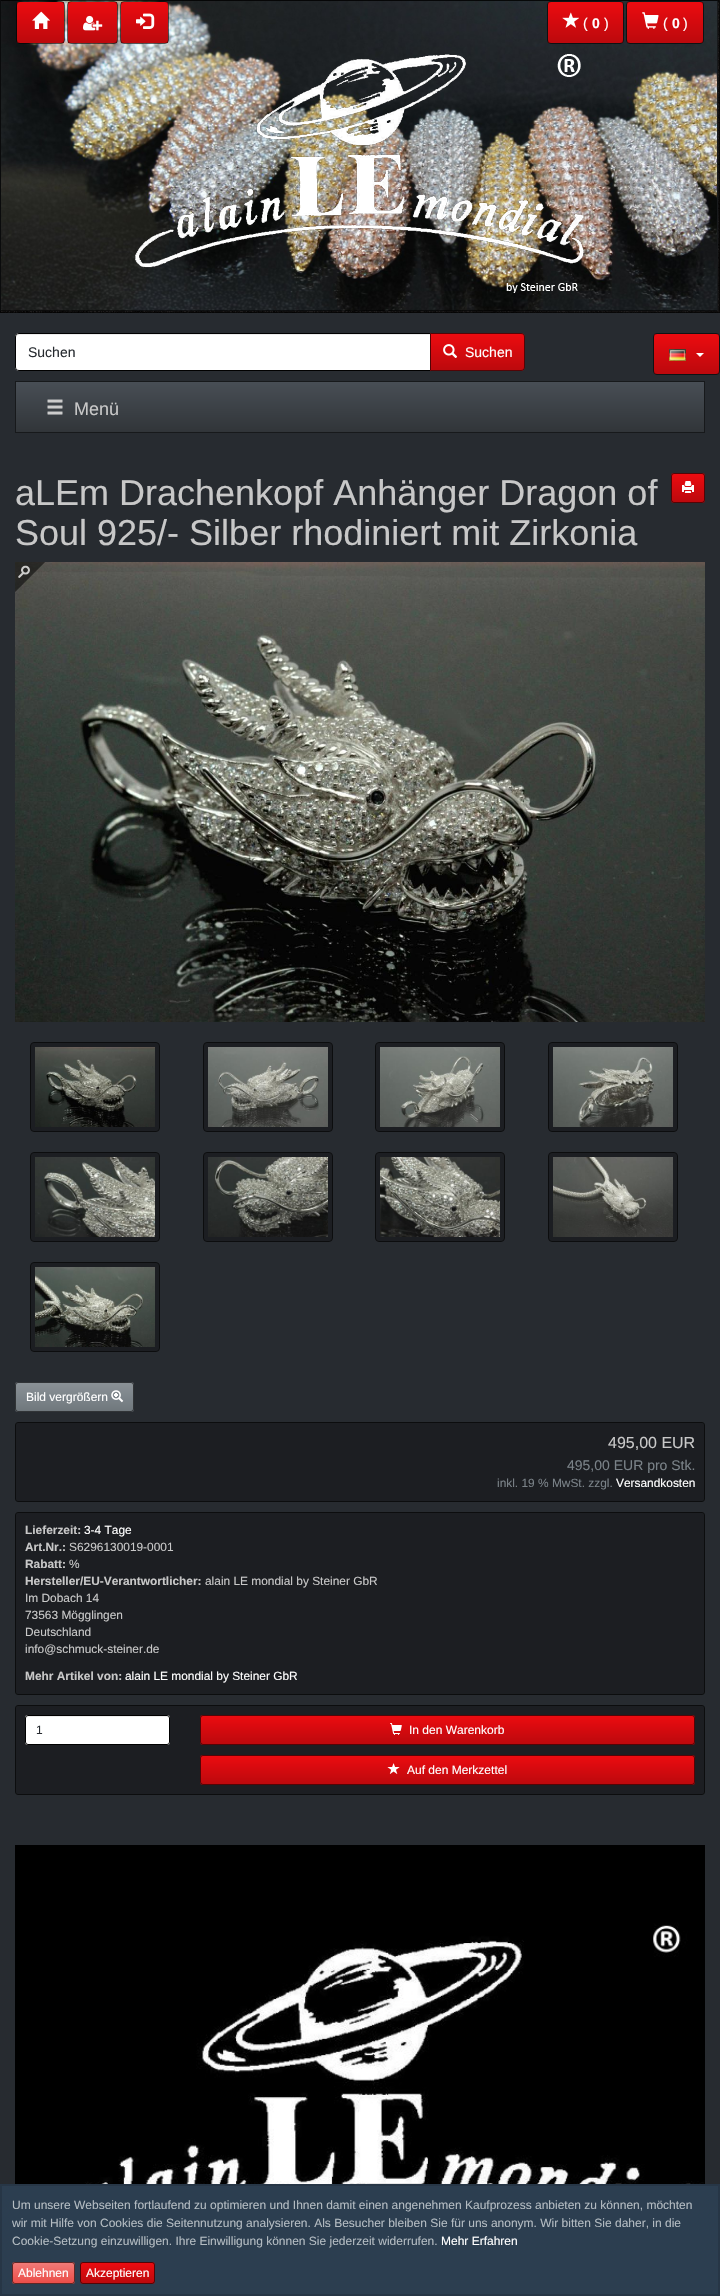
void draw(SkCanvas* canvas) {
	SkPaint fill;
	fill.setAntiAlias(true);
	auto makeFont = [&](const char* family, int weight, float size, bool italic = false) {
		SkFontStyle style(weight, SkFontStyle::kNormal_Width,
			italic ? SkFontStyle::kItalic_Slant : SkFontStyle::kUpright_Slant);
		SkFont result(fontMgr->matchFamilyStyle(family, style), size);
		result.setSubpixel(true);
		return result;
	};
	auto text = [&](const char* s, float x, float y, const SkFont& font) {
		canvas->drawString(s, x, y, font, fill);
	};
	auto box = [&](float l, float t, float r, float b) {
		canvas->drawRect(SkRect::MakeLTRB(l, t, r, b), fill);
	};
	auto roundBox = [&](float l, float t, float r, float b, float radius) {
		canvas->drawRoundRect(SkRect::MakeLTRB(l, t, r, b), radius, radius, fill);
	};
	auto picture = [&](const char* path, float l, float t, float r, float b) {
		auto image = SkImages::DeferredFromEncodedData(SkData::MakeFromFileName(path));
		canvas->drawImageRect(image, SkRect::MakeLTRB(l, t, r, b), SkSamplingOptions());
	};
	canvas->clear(0xFFFFFFFF);
	picture("image0.png", 0, 0, 720, 313);
	fill.setColor(0xFF3A3F44);
	box(0, 0, 718, 311);
	picture("image1.png", 1, 0, 717, 311);
	fill.setStyle(SkPaint::kStroke_Style);
	fill.setStrokeWidth(1);
	fill.setColor(0x99000000);
	canvas->drawRect(SkRect::MakeLTRB(0.5f, 0.5f, 717.5f, 310.5f), fill);
	canvas->drawRect(SkRect::MakeLTRB(0.5f, 0.5f, 719.5f, 312.5f), fill);
	canvas->save();
	canvas->clipPath(SkPathBuilder().moveTo(20, 1).lineTo(61, 1).cubicTo(63, 1, 65, 3, 65, 5).lineTo(65, 40).cubicTo(65, 42, 63, 44, 61, 44).lineTo(20, 44).cubicTo(18, 44, 16, 42, 16, 40).lineTo(16, 5).cubicTo(16, 3, 18, 1, 20, 1).close().detach(), true);
	fill.setStyle(SkPaint::kFill_Style);
	{
		const SkColor colors[] = {0xFFEC0B10, 0xFFCF0A0E, 0xFFBC090D};
		const float stops[] = {0, 0.6f, 1};
		const SkPoint ends[] = {{41, 2}, {41, 43}};
		fill.setShader(SkGradientShader::MakeLinear(ends, colors, stops, 3, SkTileMode::kClamp));
		fill.setAlpha(255);
	}
	box(17, 2, 64, 43);
	canvas->restore();
	fill.setStyle(SkPaint::kStroke_Style);
	fill.setShader(nullptr);
	fill.setColor(0x99000000);
	canvas->drawRoundRect(SkRect::MakeLTRB(16.5f, 1.5f, 64.5f, 43.5f), 3.5f, 3.5f, fill);
	picture("image2.png", 32, 11, 50, 29);
	canvas->save();
	canvas->clipPath(SkPathBuilder().moveTo(71, 1).lineTo(114, 1).cubicTo(116, 1, 118, 3, 118, 5).lineTo(118, 40).cubicTo(118, 42, 116, 44, 114, 44).lineTo(71, 44).cubicTo(69, 44, 67, 42, 67, 40).lineTo(67, 5).cubicTo(67, 3, 69, 1, 71, 1).close().detach(), true);
	fill.setStyle(SkPaint::kFill_Style);
	{
		const SkColor colors[] = {0xFFEC0B10, 0xFFCF0A0E, 0xFFBC090D};
		const float stops[] = {0, 0.6f, 1};
		const SkPoint ends[] = {{93, 2}, {93, 43}};
		fill.setShader(SkGradientShader::MakeLinear(ends, colors, stops, 3, SkTileMode::kClamp));
		fill.setAlpha(255);
	}
	box(68, 2, 117, 43);
	canvas->restore();
	fill.setStyle(SkPaint::kStroke_Style);
	fill.setShader(nullptr);
	fill.setColor(0x99000000);
	canvas->drawRoundRect(SkRect::MakeLTRB(67.5f, 1.5f, 117.5f, 43.5f), 3.5f, 3.5f, fill);
	picture("image3.png", 83, 15, 103, 31);
	canvas->save();
	canvas->clipPath(SkPathBuilder().moveTo(124, 1).lineTo(165, 1).cubicTo(167, 1, 169, 3, 169, 5).lineTo(169, 40).cubicTo(169, 42, 167, 44, 165, 44).lineTo(124, 44).cubicTo(122, 44, 120, 42, 120, 40).lineTo(120, 5).cubicTo(120, 3, 122, 1, 124, 1).close().detach(), true);
	fill.setStyle(SkPaint::kFill_Style);
	{
		const SkColor colors[] = {0xFFEC0B10, 0xFFCF0A0E, 0xFFBC090D};
		const float stops[] = {0, 0.6f, 1};
		const SkPoint ends[] = {{145, 2}, {145, 43}};
		fill.setShader(SkGradientShader::MakeLinear(ends, colors, stops, 3, SkTileMode::kClamp));
		fill.setAlpha(255);
	}
	box(121, 2, 168, 43);
	canvas->restore();
	fill.setStyle(SkPaint::kStroke_Style);
	fill.setShader(nullptr);
	fill.setColor(0x99000000);
	canvas->drawRoundRect(SkRect::MakeLTRB(120.5f, 1.5f, 168.5f, 43.5f), 3.5f, 3.5f, fill);
	picture("image4.png", 136, 13, 155, 29);
	canvas->save();
	canvas->clipPath(SkPathBuilder().moveTo(551, 1).lineTo(620, 1).cubicTo(622, 1, 624, 3, 624, 5).lineTo(624, 40).cubicTo(624, 42, 622, 44, 620, 44).lineTo(551, 44).cubicTo(549, 44, 547, 42, 547, 40).lineTo(547, 5).cubicTo(547, 3, 549, 1, 551, 1).close().detach(), true);
	fill.setStyle(SkPaint::kFill_Style);
	{
		const SkColor colors[] = {0xFFEC0B10, 0xFFCF0A0E, 0xFFBC090D};
		const float stops[] = {0, 0.6f, 1};
		const SkPoint ends[] = {{586, 2}, {586, 43}};
		fill.setShader(SkGradientShader::MakeLinear(ends, colors, stops, 3, SkTileMode::kClamp));
		fill.setAlpha(255);
	}
	box(548, 2, 623, 43);
	canvas->restore();
	fill.setStyle(SkPaint::kStroke_Style);
	fill.setShader(nullptr);
	fill.setColor(0x99000000);
	canvas->drawRoundRect(SkRect::MakeLTRB(547.5f, 1.5f, 623.5f, 43.5f), 3.5f, 3.5f, fill);
	picture("image5.png", 562, 12, 579, 28);
	canvas->save();
	canvas->clipPath(SkPathBuilder().moveTo(630, 1).lineTo(700, 1).cubicTo(702, 1, 704, 3, 704, 5).lineTo(704, 40).cubicTo(704, 42, 702, 44, 700, 44).lineTo(630, 44).cubicTo(628, 44, 626, 42, 626, 40).lineTo(626, 5).cubicTo(626, 3, 628, 1, 630, 1).close().detach(), true);
	fill.setStyle(SkPaint::kFill_Style);
	{
		const SkColor colors[] = {0xFFEC0B10, 0xFFCF0A0E, 0xFFBC090D};
		const float stops[] = {0, 0.6f, 1};
		const SkPoint ends[] = {{665, 2}, {665, 43}};
		fill.setShader(SkGradientShader::MakeLinear(ends, colors, stops, 3, SkTileMode::kClamp));
		fill.setAlpha(255);
	}
	box(627, 2, 703, 43);
	canvas->restore();
	fill.setStyle(SkPaint::kStroke_Style);
	fill.setShader(nullptr);
	fill.setColor(0x99000000);
	canvas->drawRoundRect(SkRect::MakeLTRB(626.5f, 1.5f, 703.5f, 43.5f), 3.5f, 3.5f, fill);
	picture("image6.png", 642, 12, 659, 29);
	picture("image7.png", 135, 54, 584, 293);
	fill.setStyle(SkPaint::kFill_Style);
	fill.setColor(0xFF272B30);
	box(0, 313, 720, 2184);
	fill.setColor(0xFFFFFFFF);
	canvas->drawPath(SkPathBuilder().moveTo(19, 333).lineTo(431, 333).lineTo(431, 371).lineTo(19, 371).cubicTo(17, 371, 15, 369, 15, 367).lineTo(15, 337).cubicTo(15, 335, 17, 333, 19, 333).close().detach(), fill);
	fill.setColor(0xFFECECEC);
	canvas->drawPath(SkPathBuilder().moveTo(19, 335).lineTo(430, 335).lineTo(430, 334).lineTo(19, 334).cubicTo(17, 334, 16, 336, 16, 338).cubicTo(16, 336, 17, 335, 19, 335).close().detach(), fill);
	fill.setStyle(SkPaint::kStroke_Style);
	fill.setColor(0xFF000000);
	canvas->drawPath(SkPathBuilder().moveTo(19, 333.5f).lineTo(430.5f, 333.5f).lineTo(430.5f, 370.5f).lineTo(19, 370.5f).cubicTo(17, 370.5f, 15.5f, 369, 15.5f, 367).lineTo(15.5f, 337).cubicTo(15.5f, 335, 17, 333.5f, 19, 333.5f).close().detach(), fill);
	fill.setStyle(SkPaint::kFill_Style);
	fill.setColor(0xFFCF0A0E);
	canvas->drawPath(SkPathBuilder().moveTo(430, 333).lineTo(521, 333).cubicTo(523, 333, 525, 335, 525, 337).lineTo(525, 367).cubicTo(525, 369, 523, 371, 521, 371).lineTo(430, 371).close().detach(), fill);
	{
		const SkColor colors[] = {0xFFEC0B10, 0xFFCF0A0E, 0xFFBC090D};
		const float stops[] = {0, 0.6f, 1};
		const SkPoint ends[] = {{478, 334}, {478, 370}};
		fill.setShader(SkGradientShader::MakeLinear(ends, colors, stops, 3, SkTileMode::kClamp));
		fill.setAlpha(255);
	}
	box(431, 334, 524, 370);
	fill.setStyle(SkPaint::kStroke_Style);
	fill.setShader(nullptr);
	fill.setColor(0x99000000);
	canvas->drawPath(SkPathBuilder().moveTo(430.5f, 333.5f).lineTo(521, 333.5f).cubicTo(523, 333.5f, 524.5f, 335, 524.5f, 337).lineTo(524.5f, 367).cubicTo(524.5f, 369, 523, 370.5f, 521, 370.5f).lineTo(430.5f, 370.5f).close().detach(), fill);
	picture("image8.png", 443, 344, 458, 358);
	canvas->save();
	canvas->clipPath(SkPathBuilder().moveTo(657, 333).lineTo(716, 333).cubicTo(718, 333, 720, 335, 720, 337).lineTo(720, 371).cubicTo(720, 373, 718, 375, 716, 375).lineTo(657, 375).cubicTo(655, 375, 653, 373, 653, 371).lineTo(653, 337).cubicTo(653, 335, 655, 333, 657, 333).close().detach(), true);
	fill.setStyle(SkPaint::kFill_Style);
	{
		const SkColor colors[] = {0xFFEC0B10, 0xFFCF0A0E, 0xFFBC090D};
		const float stops[] = {0, 0.6f, 1};
		const SkPoint ends[] = {{687, 334}, {687, 374}};
		fill.setShader(SkGradientShader::MakeLinear(ends, colors, stops, 3, SkTileMode::kClamp));
		fill.setAlpha(255);
	}
	box(654, 334, 719, 374);
	canvas->restore();
	fill.setStyle(SkPaint::kStroke_Style);
	fill.setShader(nullptr);
	fill.setColor(0x99000000);
	canvas->drawRoundRect(SkRect::MakeLTRB(653.5f, 333.5f, 719.5f, 374.5f), 3.5f, 3.5f, fill);
	picture("image9.png", 669, 349, 686, 361);
	fill.setStyle(SkPaint::kFill_Style);
	fill.setColor(0xFFFFFFFF);
	canvas->drawPath(SkPathBuilder().moveTo(696, 353).lineTo(704, 353).lineTo(700, 357).close().detach(), fill);
	{
		const SkColor colors[] = {0xFF484E55, 0xFF3A3F44, 0xFF313539};
		const float stops[] = {0, 0.6f, 1};
		const SkPoint ends[] = {{360, 382}, {360, 432}};
		fill.setShader(SkGradientShader::MakeLinear(ends, colors, stops, 3, SkTileMode::kClamp));
		fill.setAlpha(255);
	}
	box(16, 382, 704, 432);
	fill.setStyle(SkPaint::kStroke_Style);
	fill.setShader(nullptr);
	fill.setColor(0xFF17191B);
	canvas->drawRect(SkRect::MakeLTRB(15.5f, 381.5f, 704.5f, 432.5f), fill);
	picture("image10.png", 47, 399, 63, 415);
	fill.setStyle(SkPaint::kFill_Style);
	fill.setColor(0xFFCF0A0E);
	roundBox(671, 473, 705, 503, 3);
	{
		const SkColor colors[] = {0xFFEC0B10, 0xFFCF0A0E, 0xFFBC090D};
		const float stops[] = {0, 0.6f, 1};
		const SkPoint ends[] = {{688, 474}, {688, 502}};
		fill.setShader(SkGradientShader::MakeLinear(ends, colors, stops, 3, SkTileMode::kClamp));
		fill.setAlpha(255);
	}
	box(672, 474, 704, 502);
	fill.setStyle(SkPaint::kStroke_Style);
	fill.setShader(nullptr);
	fill.setColor(0x99000000);
	canvas->drawRoundRect(SkRect::MakeLTRB(671.5f, 473.5f, 704.5f, 502.5f), 2.5f, 2.5f, fill);
	picture("image11.png", 682, 481, 694, 493);
	picture("image12.png", 15, 562, 705, 1022);
	picture("image13.png", 15, 562, 45, 592);
	fill.setStyle(SkPaint::kFill_Style);
	fill.setColor(0xFF1C1E22);
	canvas->drawRoundRect(SkRect::MakeLTRB(30.5f, 1042.5f, 159.5f, 1131.5f), 3.5f, 3.5f, fill);
	fill.setStyle(SkPaint::kStroke_Style);
	fill.setColor(0xFF0C0D0E);
	canvas->drawRoundRect(SkRect::MakeLTRB(30.5f, 1042.5f, 159.5f, 1131.5f), 3.5f, 3.5f, fill);
	picture("image14.png", 35, 1047, 155, 1127);
	fill.setStyle(SkPaint::kFill_Style);
	fill.setColor(0xFF1C1E22);
	canvas->drawRoundRect(SkRect::MakeLTRB(203.5f, 1042.5f, 332.5f, 1131.5f), 3.5f, 3.5f, fill);
	fill.setStyle(SkPaint::kStroke_Style);
	fill.setColor(0xFF0C0D0E);
	canvas->drawRoundRect(SkRect::MakeLTRB(203.5f, 1042.5f, 332.5f, 1131.5f), 3.5f, 3.5f, fill);
	picture("image15.png", 208, 1047, 328, 1127);
	fill.setStyle(SkPaint::kFill_Style);
	fill.setColor(0xFF1C1E22);
	canvas->drawRoundRect(SkRect::MakeLTRB(375.5f, 1042.5f, 504.5f, 1131.5f), 3.5f, 3.5f, fill);
	fill.setStyle(SkPaint::kStroke_Style);
	fill.setColor(0xFF0C0D0E);
	canvas->drawRoundRect(SkRect::MakeLTRB(375.5f, 1042.5f, 504.5f, 1131.5f), 3.5f, 3.5f, fill);
	picture("image16.png", 380, 1047, 500, 1127);
	fill.setStyle(SkPaint::kFill_Style);
	fill.setColor(0xFF1C1E22);
	canvas->drawRoundRect(SkRect::MakeLTRB(548.5f, 1042.5f, 677.5f, 1131.5f), 3.5f, 3.5f, fill);
	fill.setStyle(SkPaint::kStroke_Style);
	fill.setColor(0xFF0C0D0E);
	canvas->drawRoundRect(SkRect::MakeLTRB(548.5f, 1042.5f, 677.5f, 1131.5f), 3.5f, 3.5f, fill);
	picture("image17.png", 553, 1047, 673, 1127);
	fill.setStyle(SkPaint::kFill_Style);
	fill.setColor(0xFF1C1E22);
	canvas->drawRoundRect(SkRect::MakeLTRB(30.5f, 1152.5f, 159.5f, 1241.5f), 3.5f, 3.5f, fill);
	fill.setStyle(SkPaint::kStroke_Style);
	fill.setColor(0xFF0C0D0E);
	canvas->drawRoundRect(SkRect::MakeLTRB(30.5f, 1152.5f, 159.5f, 1241.5f), 3.5f, 3.5f, fill);
	picture("image18.png", 35, 1157, 155, 1237);
	fill.setStyle(SkPaint::kFill_Style);
	fill.setColor(0xFF1C1E22);
	canvas->drawRoundRect(SkRect::MakeLTRB(203.5f, 1152.5f, 332.5f, 1241.5f), 3.5f, 3.5f, fill);
	fill.setStyle(SkPaint::kStroke_Style);
	fill.setColor(0xFF0C0D0E);
	canvas->drawRoundRect(SkRect::MakeLTRB(203.5f, 1152.5f, 332.5f, 1241.5f), 3.5f, 3.5f, fill);
	picture("image19.png", 208, 1157, 328, 1237);
	fill.setStyle(SkPaint::kFill_Style);
	fill.setColor(0xFF1C1E22);
	canvas->drawRoundRect(SkRect::MakeLTRB(375.5f, 1152.5f, 504.5f, 1241.5f), 3.5f, 3.5f, fill);
	fill.setStyle(SkPaint::kStroke_Style);
	fill.setColor(0xFF0C0D0E);
	canvas->drawRoundRect(SkRect::MakeLTRB(375.5f, 1152.5f, 504.5f, 1241.5f), 3.5f, 3.5f, fill);
	picture("image20.png", 380, 1157, 500, 1237);
	fill.setStyle(SkPaint::kFill_Style);
	fill.setColor(0xFF1C1E22);
	canvas->drawRoundRect(SkRect::MakeLTRB(548.5f, 1152.5f, 677.5f, 1241.5f), 3.5f, 3.5f, fill);
	fill.setStyle(SkPaint::kStroke_Style);
	fill.setColor(0xFF0C0D0E);
	canvas->drawRoundRect(SkRect::MakeLTRB(548.5f, 1152.5f, 677.5f, 1241.5f), 3.5f, 3.5f, fill);
	picture("image21.png", 553, 1157, 673, 1237);
	fill.setStyle(SkPaint::kFill_Style);
	fill.setColor(0xFF1C1E22);
	canvas->drawRoundRect(SkRect::MakeLTRB(30.5f, 1262.5f, 159.5f, 1351.5f), 3.5f, 3.5f, fill);
	fill.setStyle(SkPaint::kStroke_Style);
	fill.setColor(0xFF0C0D0E);
	canvas->drawRoundRect(SkRect::MakeLTRB(30.5f, 1262.5f, 159.5f, 1351.5f), 3.5f, 3.5f, fill);
	picture("image22.png", 35, 1267, 155, 1347);
	fill.setStyle(SkPaint::kFill_Style);
	fill.setColor(0xFF7A8288);
	roundBox(15, 1382, 134, 1412, 3);
	{
		const SkColor colors[] = {0xFF8A9196, 0xFF7A8288, 0xFF70787D};
		const float stops[] = {0, 0.6f, 1};
		const SkPoint ends[] = {{75, 1383}, {75, 1411}};
		fill.setShader(SkGradientShader::MakeLinear(ends, colors, stops, 3, SkTileMode::kClamp));
		fill.setAlpha(255);
	}
	box(16, 1383, 133, 1411);
	fill.setStyle(SkPaint::kStroke_Style);
	fill.setShader(nullptr);
	fill.setColor(0x99000000);
	canvas->drawRoundRect(SkRect::MakeLTRB(15.5f, 1382.5f, 133.5f, 1411.5f), 2.5f, 2.5f, fill);
	picture("image23.png", 111, 1390, 124, 1403);
	fill.setStyle(SkPaint::kFill_Style);
	fill.setColor(0xFF1C1E22);
	canvas->drawRoundRect(SkRect::MakeLTRB(15.5f, 1422.5f, 704.5f, 1501.5f), 2.5f, 2.5f, fill);
	fill.setStyle(SkPaint::kStroke_Style);
	fill.setColor(0xFF0C0D0E);
	canvas->drawRoundRect(SkRect::MakeLTRB(15.5f, 1422.5f, 704.5f, 1501.5f), 2.5f, 2.5f, fill);
	fill.setStyle(SkPaint::kFill_Style);
	fill.setColor(0xFF1C1E22);
	canvas->drawRoundRect(SkRect::MakeLTRB(15.5f, 1512.5f, 704.5f, 1694.5f), 2.5f, 2.5f, fill);
	fill.setStyle(SkPaint::kStroke_Style);
	fill.setColor(0xFF0C0D0E);
	canvas->drawRoundRect(SkRect::MakeLTRB(15.5f, 1512.5f, 704.5f, 1694.5f), 2.5f, 2.5f, fill);
	fill.setStyle(SkPaint::kFill_Style);
	fill.setColor(0xFF1C1E22);
	canvas->drawRoundRect(SkRect::MakeLTRB(15.5f, 1705.5f, 704.5f, 1794.5f), 2.5f, 2.5f, fill);
	fill.setStyle(SkPaint::kStroke_Style);
	fill.setColor(0xFF0C0D0E);
	canvas->drawRoundRect(SkRect::MakeLTRB(15.5f, 1705.5f, 704.5f, 1794.5f), 2.5f, 2.5f, fill);
	fill.setStyle(SkPaint::kFill_Style);
	fill.setColor(0xFFFFFFFF);
	roundBox(25, 1715, 170, 1745, 3);
	fill.setColor(0xFFECECEC);
	canvas->drawPath(SkPathBuilder().moveTo(28, 1717).lineTo(167, 1717).cubicTo(168, 1717, 169, 1718, 169, 1719).lineTo(169, 1717).lineTo(167, 1716).lineTo(27, 1716).cubicTo(26, 1717, 26, 1718, 26, 1719).cubicTo(26, 1718, 27, 1717, 28, 1717).close().detach(), fill);
	fill.setStyle(SkPaint::kStroke_Style);
	fill.setColor(0xFF000000);
	canvas->drawRoundRect(SkRect::MakeLTRB(25.5f, 1715.5f, 169.5f, 1744.5f), 2.5f, 2.5f, fill);
	fill.setStyle(SkPaint::kFill_Style);
	fill.setColor(0xFFCF0A0E);
	roundBox(200, 1715, 695, 1745, 3);
	{
		const SkColor colors[] = {0xFFEC0B10, 0xFFCF0A0E, 0xFFBC090D};
		const float stops[] = {0, 0.6f, 1};
		const SkPoint ends[] = {{448, 1716}, {448, 1744}};
		fill.setShader(SkGradientShader::MakeLinear(ends, colors, stops, 3, SkTileMode::kClamp));
		fill.setAlpha(255);
	}
	box(201, 1716, 694, 1744);
	fill.setStyle(SkPaint::kStroke_Style);
	fill.setShader(nullptr);
	fill.setColor(0x99000000);
	canvas->drawRoundRect(SkRect::MakeLTRB(200.5f, 1715.5f, 694.5f, 1744.5f), 2.5f, 2.5f, fill);
	picture("image24.png", 390, 1723, 402, 1735);
	fill.setStyle(SkPaint::kFill_Style);
	fill.setColor(0xFFCF0A0E);
	roundBox(200, 1755, 695, 1785, 3);
	{
		const SkColor colors[] = {0xFFEC0B10, 0xFFCF0A0E, 0xFFBC090D};
		const float stops[] = {0, 0.6f, 1};
		const SkPoint ends[] = {{448, 1756}, {448, 1784}};
		fill.setShader(SkGradientShader::MakeLinear(ends, colors, stops, 3, SkTileMode::kClamp));
		fill.setAlpha(255);
	}
	box(201, 1756, 694, 1784);
	fill.setStyle(SkPaint::kStroke_Style);
	fill.setShader(nullptr);
	fill.setColor(0x99000000);
	canvas->drawRoundRect(SkRect::MakeLTRB(200.5f, 1755.5f, 694.5f, 1784.5f), 2.5f, 2.5f, fill);
	picture("image25.png", 387, 1763, 400, 1774);
	picture("image26.png", 15, 1845, 705, 2184);
	fill.setStyle(SkPaint::kFill_Style);
	fill.setColor(0xFF2C3E50);
	canvas->drawRect(SkRect::MakeLTRB(1, 2185, 719, 2295), fill);
	fill.setStyle(SkPaint::kStroke_Style);
	fill.setStrokeWidth(2);
	fill.setColor(0xFF273646);
	canvas->drawRect(SkRect::MakeLTRB(1, 2185, 719, 2295), fill);
	fill.setStyle(SkPaint::kFill_Style);
	fill.setColor(0xFFEE5F5B);
	roundBox(12, 2262, 75, 2284, 3);
	{
		const SkColor colors[] = {0xFFF17A77, 0xFFEE5F5B, 0xFFEC4D49};
		const float stops[] = {0, 0.6f, 1};
		const SkPoint ends[] = {{44, 2263}, {44, 2283}};
		fill.setShader(SkGradientShader::MakeLinear(ends, colors, stops, 3, SkTileMode::kClamp));
		fill.setAlpha(255);
	}
	box(13, 2263, 74, 2283);
	fill.setStyle(SkPaint::kStroke_Style);
	fill.setStrokeWidth(1);
	fill.setShader(nullptr);
	fill.setColor(0x99000000);
	canvas->drawRoundRect(SkRect::MakeLTRB(12.5f, 2262.5f, 74.5f, 2283.5f), 2.5f, 2.5f, fill);
	fill.setStyle(SkPaint::kFill_Style);
	fill.setColor(0xFFCF0A0E);
	roundBox(80, 2262, 155, 2284, 3);
	{
		const SkColor colors[] = {0xFFEC0B10, 0xFFCF0A0E, 0xFFBC090D};
		const float stops[] = {0, 0.6f, 1};
		const SkPoint ends[] = {{118, 2263}, {118, 2283}};
		fill.setShader(SkGradientShader::MakeLinear(ends, colors, stops, 3, SkTileMode::kClamp));
		fill.setAlpha(255);
	}
	box(81, 2263, 154, 2283);
	fill.setStyle(SkPaint::kStroke_Style);
	fill.setShader(nullptr);
	fill.setColor(0x99000000);
	canvas->drawRoundRect(SkRect::MakeLTRB(80.5f, 2262.5f, 154.5f, 2283.5f), 2.5f, 2.5f, fill);
	auto font1 = makeFont("Liberation Sans", 400, 14);
	fill.setStyle(SkPaint::kFill_Style);
	fill.setColor(0xFFFFFFFF);
	text("(", 583, 28, font1);
	auto font2 = makeFont("Liberation Sans", 700, 14);
	text("0", 592, 28, font2);
	text(")", 604, 28, font1);
	text("(", 663, 28, font1);
	text("0", 672, 28, font2);
	text(")", 683, 28, font1);
	fill.setColor(0xFF272B30);
	text("Suchen", 28, 357, font1);
	fill.setColor(0xFFFFFFFF);
	text("Suchen", 465, 357, font1);
	auto font3 = makeFont("Liberation Sans", 400, 18);
	fill.setColor(0xFFC8C8C8);
	text("Menü", 74, 415, font3);
	auto font4 = makeFont("Liberation Sans", 400, 36);
	text("aLEm Drachenkopf Anhänger Dragon of", 15, 505, font4);
	text("Soul 925/- Silber rhodiniert mit Zirkonia", 15, 545, font4);
	auto font5 = makeFont("Liberation Sans", 400, 12);
	fill.setColor(0xFFFFFFFF);
	text("Bild vergrößern", 26, 1401, font5);
	auto font6 = makeFont("Liberation Sans", 400, 16);
	fill.setColor(0xFFC8C8C8);
	text("495,00 EUR", 608, 1448, font6);
	fill.setColor(0xFF7A8288);
	text("495,00 EUR pro Stk.", 567, 1470, font1);
	auto font7 = makeFont("Liberation Sans", 400, 11.9f);
	text("inkl. 19 % MwSt. zzgl.", 497, 1487, font7);
	fill.setColor(0xFFFFFFFF);
	text("Versandkosten", 616, 1487, font7);
	auto font8 = makeFont("Liberation Sans", 700, 11.9f);
	fill.setColor(0xFFC8C8C8);
	text("Lieferzeit:", 25, 1534, font8);
	fill.setColor(0xFFFFFFFF);
	text("3-4 Tage", 84, 1534, font7);
	fill.setColor(0xFFC8C8C8);
	text("Art.Nr.:", 25, 1551, font8);
	text("S6296130019-0001", 69, 1551, font7);
	text("Rabatt:", 25, 1568, font8);
	text("%", 69, 1568, font7);
	text("Hersteller/EU-Verantwortlicher:", 25, 1585, font8);
	text("alain LE mondial by Steiner GbR", 205, 1585, font7);
	text("Im Dobach 14", 25, 1602, font7);
	text("73563 Mögglingen", 25, 1619, font7);
	text("Deutschland", 25, 1636, font7);
	text("info@schmuck-steiner.de", 25, 1653, font7);
	text("Mehr Artikel von:", 25, 1680, font8);
	fill.setColor(0xFFFFFFFF);
	text("alain LE mondial by Steiner GbR", 125, 1680, font7);
	fill.setColor(0xFF272B30);
	text("1", 36, 1734, font5);
	fill.setColor(0xFFFFFFFF);
	text("In den Warenkorb", 409, 1734, font5);
	text("Auf den Merkzettel", 407, 1774, font5);
	fill.setColor(0xFFB4BCC2);
	text("Um unsere Webseiten fortlaufend zu optimieren und Ihnen damit einen angenehmen Kaufprozess anbieten zu können, möchten", 12, 2209, font5);
	text("wir mit Hilfe von Cookies die Seitennutzung analysieren. Als Besucher bleiben Sie für uns anonym. Wir bitten Sie daher, in die", 12, 2227, font5);
	text("Cookie-Setzung einzuwilligen. Ihre Einwilligung können Sie jederzeit widerrufen.", 12, 2245, font5);
	fill.setColor(0xFFFFFFFF);
	text("Mehr Erfahren", 441, 2245, font5);
	text("Ablehnen", 18, 2277, font5);
	text("Akzeptieren", 86, 2277, font5);
}
